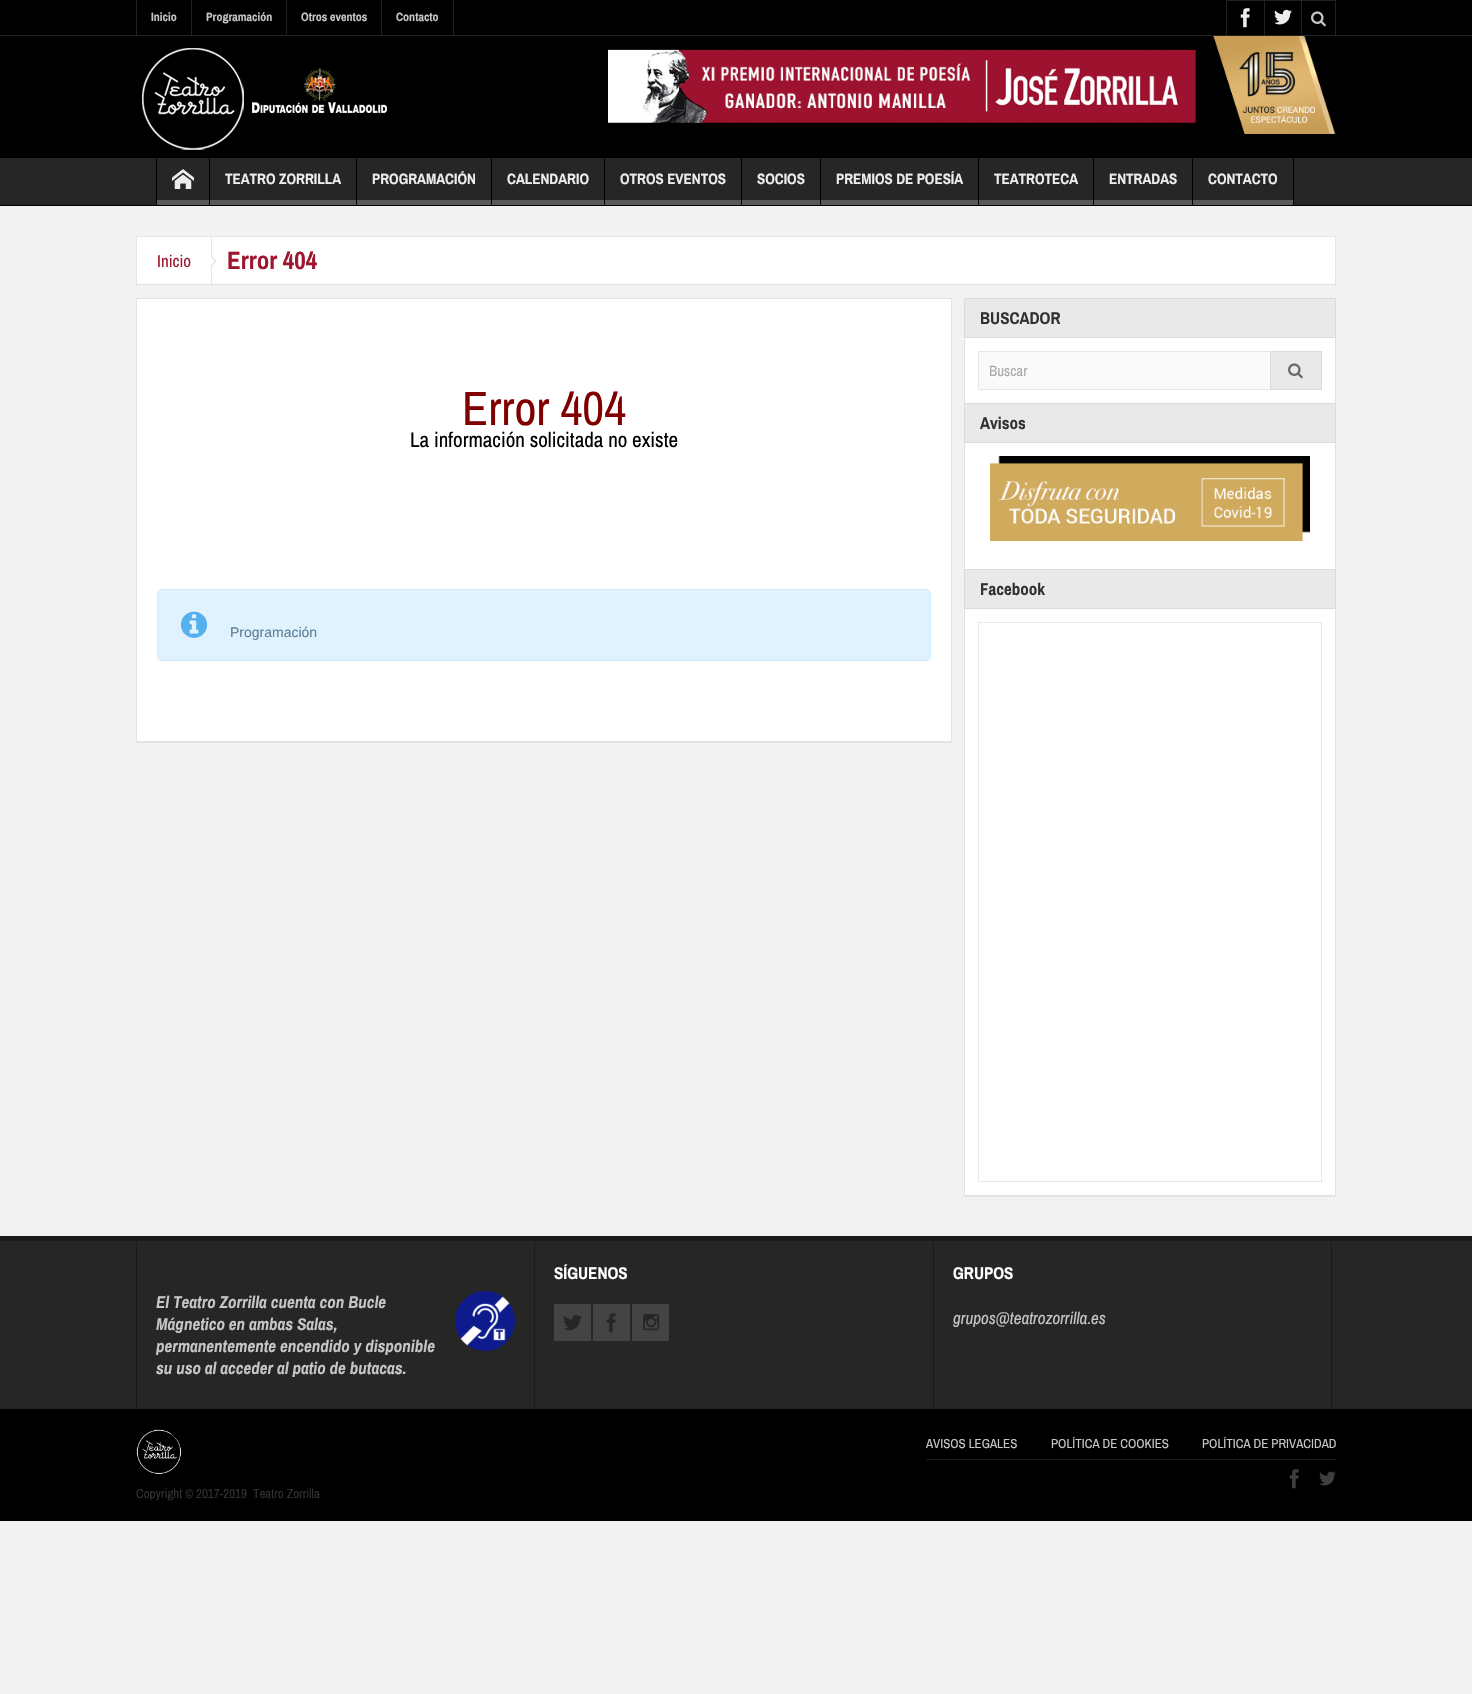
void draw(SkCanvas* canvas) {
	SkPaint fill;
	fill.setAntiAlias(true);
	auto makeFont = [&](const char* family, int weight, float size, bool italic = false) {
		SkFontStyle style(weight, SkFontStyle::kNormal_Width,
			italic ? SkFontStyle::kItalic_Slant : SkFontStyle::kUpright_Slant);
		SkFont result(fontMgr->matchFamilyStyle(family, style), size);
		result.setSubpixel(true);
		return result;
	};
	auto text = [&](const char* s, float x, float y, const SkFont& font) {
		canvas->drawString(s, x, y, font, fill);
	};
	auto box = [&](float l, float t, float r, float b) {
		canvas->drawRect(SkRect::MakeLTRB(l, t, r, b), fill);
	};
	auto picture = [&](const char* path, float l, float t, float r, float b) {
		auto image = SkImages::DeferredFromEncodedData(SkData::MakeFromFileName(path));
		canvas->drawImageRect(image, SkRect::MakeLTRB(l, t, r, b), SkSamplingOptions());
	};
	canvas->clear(0xFFF2F2F2);
	fill.setColor(0xFF000000);
	box(0, 0, 1472, 35);
	fill.setColor(0xFF222222);
	box(0, 35, 1472, 36);
	box(191, 0, 192, 35);
	box(136, 0, 137, 35);
	box(286, 0, 287, 35);
	box(381, 0, 382, 35);
	box(453, 0, 454, 35);
	box(1226, 0, 1336, 1);
	box(1226, 0, 1227, 35);
	picture("image0.png", 1240, 8, 1250, 28);
	box(1264, 0, 1265, 35);
	picture("image1.png", 1274, 9, 1292, 25);
	box(1335, 0, 1336, 35);
	box(1301, 0, 1302, 35);
	picture("image2.png", 1311, 11, 1326, 27);
	fill.setColor(0xFF000000);
	box(0, 36, 1472, 158);
	picture("image3.png", 142, 48, 387, 150);
	picture("image4.png", 608, 36, 1336, 134);
	fill.setColor(0xFF262626);
	box(0, 158, 1472, 205);
	fill.setColor(0xFF000000);
	box(0, 205, 1472, 206);
	box(209, 158, 210, 205);
	box(156, 158, 157, 205);
	picture("image5.png", 172, 169, 194, 189);
	fill.setColor(0xFF5A5A5A);
	box(157, 200, 209, 205);
	fill.setColor(0xFF000000);
	box(356, 158, 357, 205);
	fill.setColor(0xFF5A5A5A);
	box(210, 200, 356, 205);
	fill.setColor(0xFF000000);
	box(491, 158, 492, 205);
	fill.setColor(0xFF5A5A5A);
	box(357, 200, 491, 205);
	fill.setColor(0xFF000000);
	box(604, 158, 605, 205);
	fill.setColor(0xFF5A5A5A);
	box(492, 200, 604, 205);
	fill.setColor(0xFF000000);
	box(741, 158, 742, 205);
	fill.setColor(0xFF5A5A5A);
	box(605, 200, 741, 205);
	fill.setColor(0xFF000000);
	box(820, 158, 821, 205);
	fill.setColor(0xFF5A5A5A);
	box(742, 200, 820, 205);
	fill.setColor(0xFF000000);
	box(978, 158, 979, 205);
	fill.setColor(0xFF5A5A5A);
	box(821, 200, 978, 205);
	fill.setColor(0xFF000000);
	box(1093, 158, 1094, 205);
	fill.setColor(0xFF5A5A5A);
	box(979, 200, 1093, 205);
	fill.setColor(0xFF000000);
	box(1192, 158, 1193, 205);
	fill.setColor(0xFF5A5A5A);
	box(1094, 200, 1192, 205);
	fill.setColor(0xFF000000);
	box(1293, 158, 1294, 205);
	fill.setColor(0xFF5A5A5A);
	box(1193, 200, 1293, 205);
	fill.setColor(0xFFFFFFFF);
	box(137, 237, 1335, 284);
	fill.setColor(0xFFE5E5E5);
	box(136, 236, 1336, 237);
	box(1335, 236, 1336, 285);
	fill.setColor(0xFFE1E1E1);
	box(136, 284, 1336, 285);
	fill.setColor(0xFFE5E5E5);
	box(136, 236, 137, 285);
	box(211, 237, 212, 284);
	canvas->drawPath(SkPathBuilder().moveTo(211, 267).lineTo(211, 255).lineTo(217, 261).close().detach(), fill);
	fill.setColor(0xFFFFFFFF);
	canvas->drawPath(SkPathBuilder().moveTo(211, 265).lineTo(211, 257).lineTo(215, 261).close().detach(), fill);
	fill.setColor(0xFFE5E5E5);
	box(136, 742, 952, 743);
	fill.setColor(0xFFFFFFFF);
	canvas->drawRect(SkRect::MakeLTRB(136.5f, 298.5f, 951.5f, 741.5f), fill);
	fill.setStyle(SkPaint::kStroke_Style);
	fill.setStrokeWidth(1);
	fill.setColor(0xFFE1E1E1);
	canvas->drawRect(SkRect::MakeLTRB(136.5f, 298.5f, 951.5f, 741.5f), fill);
	fill.setStyle(SkPaint::kFill_Style);
	fill.setColor(0xFFDFF2FE);
	canvas->drawRoundRect(SkRect::MakeLTRB(157.5f, 589.5f, 930.5f, 660.5f), 4.5f, 4.5f, fill);
	fill.setStyle(SkPaint::kStroke_Style);
	fill.setColor(0xFFCFEBFE);
	canvas->drawRoundRect(SkRect::MakeLTRB(157.5f, 589.5f, 930.5f, 660.5f), 4.5f, 4.5f, fill);
	picture("image6.png", 180, 611, 208, 638);
	fill.setStyle(SkPaint::kFill_Style);
	fill.setColor(0xFFE5E5E5);
	box(964, 1196, 1336, 1197);
	fill.setColor(0xFFFFFFFF);
	box(965, 338, 1335, 1195);
	fill.setStyle(SkPaint::kStroke_Style);
	fill.setColor(0xFFE1E1E1);
	canvas->drawRect(SkRect::MakeLTRB(964.5f, 298.5f, 1335.5f, 1195.5f), fill);
	fill.setStyle(SkPaint::kFill_Style);
	fill.setColor(0xFFE9E9E9);
	canvas->drawRect(SkRect::MakeLTRB(964.5f, 298.5f, 1335.5f, 337.5f), fill);
	fill.setStyle(SkPaint::kStroke_Style);
	fill.setColor(0xFFDBDBDB);
	canvas->drawRect(SkRect::MakeLTRB(964.5f, 298.5f, 1335.5f, 337.5f), fill);
	fill.setStyle(SkPaint::kFill_Style);
	fill.setColor(0xFFFAFAFA);
	box(979, 352, 1270, 389);
	fill.setColor(0xFFE7E7E7);
	box(978, 351, 1270, 352);
	box(978, 389, 1270, 390);
	box(978, 351, 979, 390);
	fill.setColor(0xFFE9E9E9);
	canvas->drawRect(SkRect::MakeLTRB(1270.5f, 351.5f, 1321.5f, 389.5f), fill);
	fill.setStyle(SkPaint::kStroke_Style);
	fill.setColor(0xFFDBDBDB);
	canvas->drawRect(SkRect::MakeLTRB(1270.5f, 351.5f, 1321.5f, 389.5f), fill);
	picture("image7.png", 1288, 363, 1303, 379);
	fill.setStyle(SkPaint::kFill_Style);
	fill.setColor(0xFFE9E9E9);
	canvas->drawRect(SkRect::MakeLTRB(964.5f, 403.5f, 1335.5f, 442.5f), fill);
	fill.setStyle(SkPaint::kStroke_Style);
	fill.setColor(0xFFDBDBDB);
	canvas->drawRect(SkRect::MakeLTRB(964.5f, 403.5f, 1335.5f, 442.5f), fill);
	picture("image8.png", 990, 456, 1310, 541);
	fill.setStyle(SkPaint::kFill_Style);
	fill.setColor(0xFFE9E9E9);
	canvas->drawRect(SkRect::MakeLTRB(964.5f, 569.5f, 1335.5f, 608.5f), fill);
	fill.setStyle(SkPaint::kStroke_Style);
	fill.setColor(0xFFDBDBDB);
	canvas->drawRect(SkRect::MakeLTRB(964.5f, 569.5f, 1335.5f, 608.5f), fill);
	fill.setColor(0xFFE7E7E7);
	canvas->drawRect(SkRect::MakeLTRB(978.5f, 622.5f, 1321.5f, 1181.5f), fill);
	fill.setStyle(SkPaint::kFill_Style);
	fill.setColor(0xFF262626);
	box(0, 1241, 1472, 1409);
	fill.setColor(0xFF1A1A1A);
	box(0, 1236, 1472, 1241);
	box(534, 1241, 535, 1409);
	box(136, 1241, 137, 1409);
	picture("image9.png", 455, 1291, 515, 1351);
	box(933, 1241, 934, 1409);
	fill.setColor(0xFF444444);
	box(554, 1304, 591, 1341);
	picture("image10.png", 563, 1315, 582, 1331);
	box(593, 1304, 630, 1341);
	picture("image11.png", 606, 1313, 616, 1333);
	box(632, 1304, 669, 1341);
	picture("image12.png", 643, 1314, 660, 1331);
	fill.setColor(0xFF1A1A1A);
	box(1331, 1241, 1332, 1409);
	fill.setColor(0xFF000000);
	box(0, 1409, 1472, 1521);
	fill.setColor(0xFF1A1A1A);
	box(926, 1459, 1336, 1460);
	picture("image13.png", 1289, 1469, 1299, 1489);
	picture("image14.png", 1319, 1471, 1336, 1486);
	picture("image15.png", 136, 1429, 181, 1474);
	auto font1 = makeFont("Archivo Narrow", 700, 12);
	fill.setColor(0xFFC6C6C6);
	text("Inicio", 151, 21, font1);
	text("Programación", 206, 21, font1);
	text("Otros eventos", 301, 21, font1);
	text("Contacto", 396, 21, font1);
	auto font2 = makeFont("Archivo Narrow", 700, 15);
	fill.setColor(0xFFEDEDED);
	text("TEATRO ZORRILLA", 225, 184, font2);
	text("PROGRAMACIÓN", 372, 184, font2);
	text("CALENDARIO", 507, 184, font2);
	text("OTROS EVENTOS", 620, 184, font2);
	text("SOCIOS", 757, 184, font2);
	text("PREMIOS DE POESÍA", 836, 184, font2);
	text("TEATROTECA", 994, 184, font2);
	text("ENTRADAS", 1109, 184, font2);
	text("CONTACTO", 1208, 184, font2);
	auto font3 = makeFont("Archivo Narrow", 400, 17);
	fill.setColor(0xFF9D1731);
	text("Inicio", 157, 267, font3);
	auto font4 = makeFont("Archivo Narrow", 700, 25);
	text("Error 404", 227, 269, font4);
	auto font5 = makeFont("Archivo Narrow", 400, 48);
	fill.setColor(0xFF800000);
	text("Error 404", 462, 425, font5);
	auto font6 = makeFont("Archivo Narrow", 400, 21);
	fill.setColor(0xFF000000);
	text("La información solicitada no existe", 410, 447, font6);
	auto font7 = makeFont("Liberation Sans", 400, 14);
	fill.setColor(0xFF5E7F96);
	text("Programación", 230, 637, font7);
	auto font8 = makeFont("Archivo Narrow", 700, 17);
	fill.setColor(0xFF313131);
	text("BUSCADOR", 980, 324, font8);
	auto font9 = makeFont("Archivo Narrow", 400, 15);
	fill.setColor(0xFFAAAAAA);
	text("Buscar", 989, 376, font9);
	fill.setColor(0xFF313131);
	text("Avisos", 980, 429, font8);
	text("Facebook", 980, 595, font8);
	auto font10 = makeFont("Archivo Narrow", 700, 17, true);
	fill.setColor(0xFFC6C6C6);
	text("El Teatro Zorrilla cuenta con Bucle", 156, 1308, font10);
	text("Mágnetico en ambas Salas,", 156, 1330, font10);
	text("permanentemente encendido y disponible", 156, 1352, font10);
	text("su uso al acceder al patio de butacas.", 156, 1374, font10);
	fill.setColor(0xFFFFFFFF);
	text("SÍGUENOS", 554, 1279, font8);
	text("GRUPOS", 953, 1279, font8);
	auto font11 = makeFont("Archivo Narrow", 400, 17, true);
	fill.setColor(0xFFC6C6C6);
	text("grupos@teatrozorrilla.es", 953, 1324, font11);
	auto font12 = makeFont("Archivo Narrow", 400, 13);
	text("AVISOS LEGALES", 926, 1448, font12);
	text("POLÍTICA DE COOKIES", 1051, 1448, font12);
	text("POLÍTICA DE PRIVACIDAD", 1202, 1448, font12);
	fill.setColor(0xFF313131);
	text("Copyright © 2017-2019  Teatro Zorrilla", 136, 1498, font12);
}
